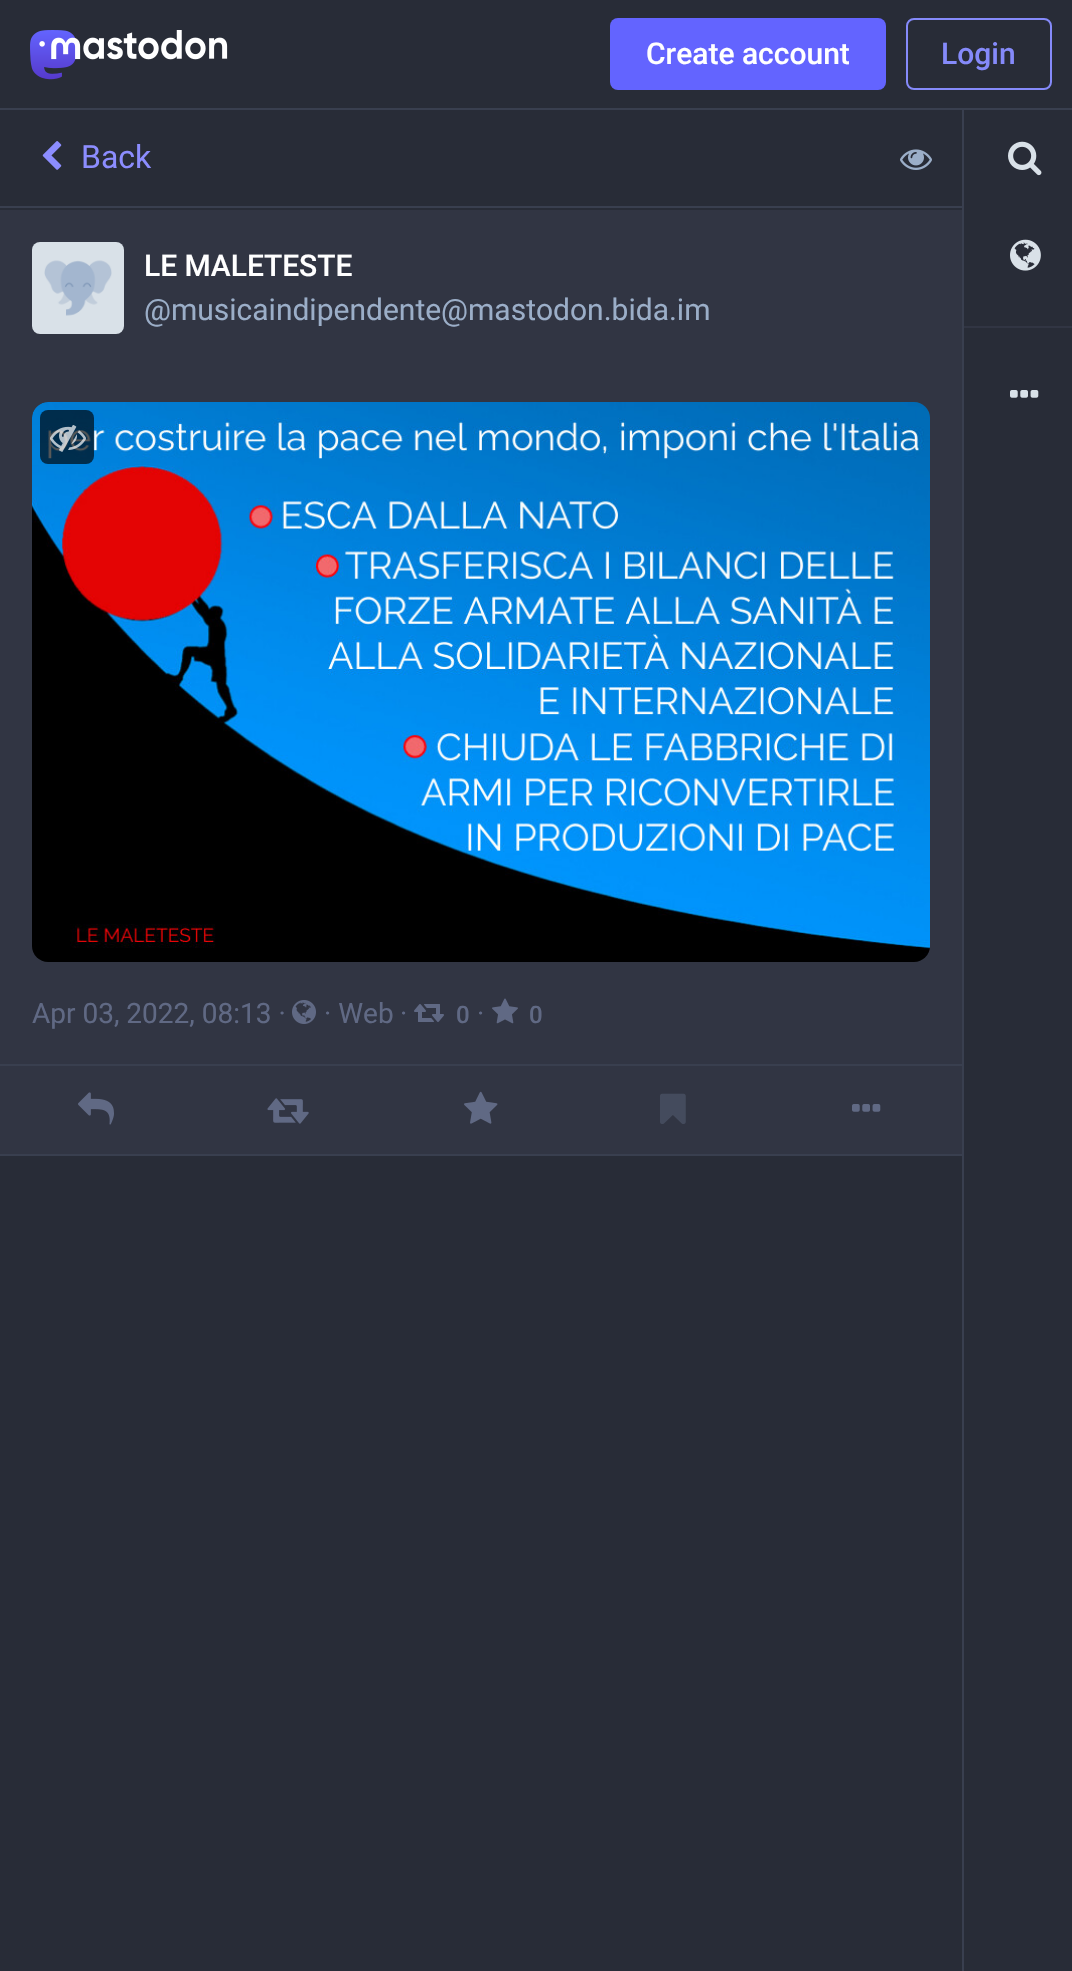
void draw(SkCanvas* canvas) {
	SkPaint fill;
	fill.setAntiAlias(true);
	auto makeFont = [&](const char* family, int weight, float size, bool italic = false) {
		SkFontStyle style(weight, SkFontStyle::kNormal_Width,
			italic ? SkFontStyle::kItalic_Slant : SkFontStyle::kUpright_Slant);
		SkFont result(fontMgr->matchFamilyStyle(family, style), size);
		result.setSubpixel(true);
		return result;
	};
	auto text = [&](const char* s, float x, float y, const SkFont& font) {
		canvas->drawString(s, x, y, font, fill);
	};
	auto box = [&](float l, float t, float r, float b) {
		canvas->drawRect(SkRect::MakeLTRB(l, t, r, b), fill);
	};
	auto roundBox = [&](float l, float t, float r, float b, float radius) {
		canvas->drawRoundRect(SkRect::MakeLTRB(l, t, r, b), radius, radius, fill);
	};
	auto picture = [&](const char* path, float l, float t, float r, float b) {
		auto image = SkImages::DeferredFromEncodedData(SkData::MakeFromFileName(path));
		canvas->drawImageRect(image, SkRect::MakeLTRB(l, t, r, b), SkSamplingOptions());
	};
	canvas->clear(0xFF282C37);
	fill.setColor(0xFF393F4F);
	box(0, 108, 1072, 110);
	picture("image0.png", 30, 30, 228, 80);
	fill.setColor(0xFF6364FF);
	roundBox(610, 18, 886, 90, 8);
	fill.setStyle(SkPaint::kStroke_Style);
	fill.setStrokeWidth(2);
	fill.setColor(0xFF858AFA);
	canvas->drawRoundRect(SkRect::MakeLTRB(907, 19, 1051, 89), 7, 7, fill);
	fill.setStyle(SkPaint::kFill_Style);
	fill.setColor(0xFF393F4F);
	box(0, 206, 962, 208);
	picture("image1.png", 42, 141, 62, 170);
	picture("image2.png", 900, 149, 932, 170);
	fill.setColor(0xFF313543);
	box(0, 210, 962, 1064);
	picture("image3.png", 32, 242, 124, 334);
	picture("image4.png", 32, 402, 930, 962);
	fill.setColor(0xA6000000);
	roundBox(40, 410, 94, 464, 8);
	picture("image5.png", 50, 425, 86, 452);
	picture("image6.png", 292, 1000, 316, 1024);
	picture("image7.png", 414, 1004, 444, 1022);
	picture("image8.png", 492, 998, 518, 1024);
	fill.setColor(0xFF313543);
	box(0, 1066, 962, 1154);
	fill.setColor(0xFF393F4F);
	box(0, 1064, 962, 1066);
	box(0, 1154, 962, 1156);
	picture("image9.png", 78, 1092, 114, 1125);
	picture("image10.png", 267, 1098, 309, 1124);
	picture("image11.png", 464, 1091, 498, 1124);
	picture("image12.png", 660, 1093, 686, 1124);
	picture("image13.png", 852, 1104, 881, 1112);
	box(962, 110, 964, 1971);
	picture("image14.png", 1008, 141, 1042, 176);
	picture("image15.png", 1010, 239, 1041, 271);
	fill.setColor(0xFF313543);
	box(964, 326, 1072, 328);
	picture("image16.png", 1010, 390, 1039, 398);
	auto font1 = makeFont("Roboto", 500, 30);
	fill.setColor(0xFFFFFFFF);
	text("Create account", 646, 64, font1);
	fill.setColor(0xFF858AFA);
	text("Login", 941, 64, font1);
	auto font2 = makeFont("Roboto", 400, 32);
	fill.setColor(0xFF8C8DFF);
	text("Back", 81, 168, font2);
	fill.setColor(0xFFFFFFFF);
	text("LE MALETESTE", 144, 276, font1);
	auto font3 = makeFont("Roboto", 400, 30);
	fill.setColor(0xFF9BAEC8);
	text("@musicaindipendente@mastodon.bida.im", 144, 320, font3);
	auto font4 = makeFont("Roboto", 400, 28);
	fill.setColor(0xFF606984);
	text("Apr 03, 2022, 08:13 ·", 32, 1023, font4);
	text("· Web", 324, 1023, font4);
	text("·", 400, 1023, font4);
	auto font5 = makeFont("Roboto", 500, 24);
	text("0", 456, 1023, font5);
	text("·", 477, 1023, font4);
	text("0", 529, 1023, font5);
}
